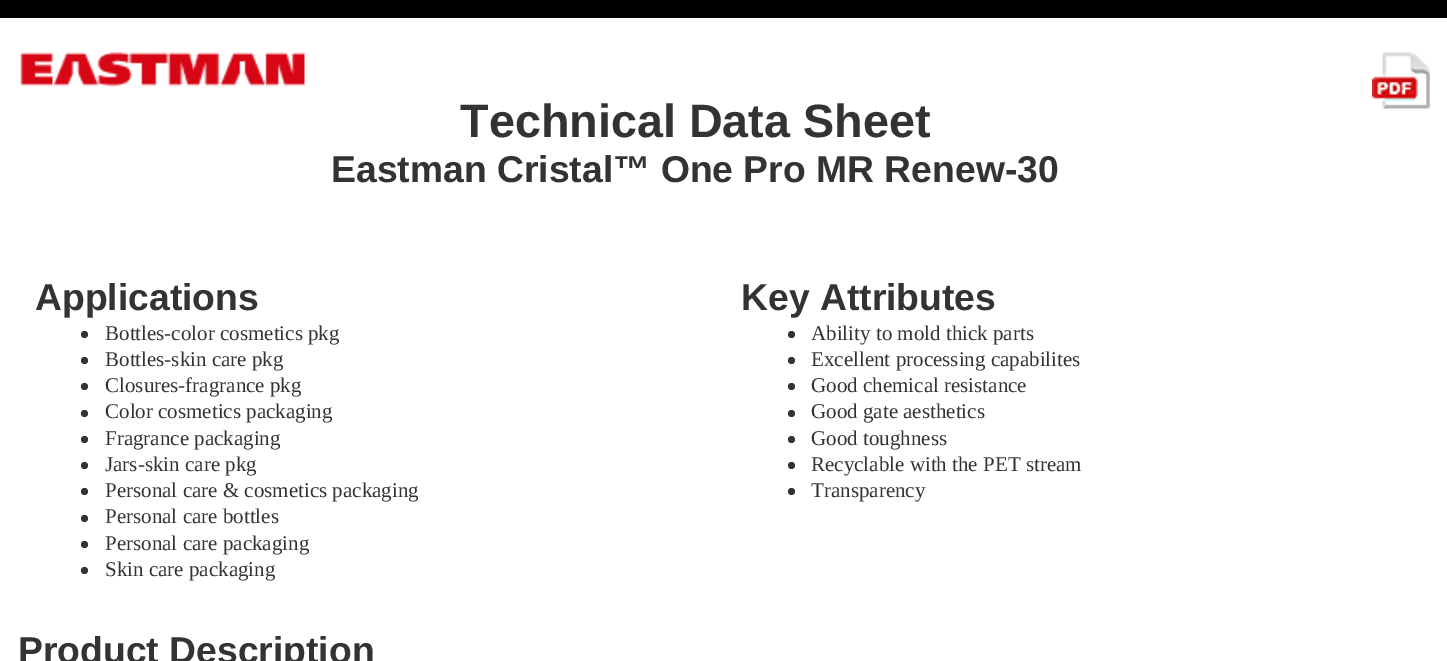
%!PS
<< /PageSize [1447 661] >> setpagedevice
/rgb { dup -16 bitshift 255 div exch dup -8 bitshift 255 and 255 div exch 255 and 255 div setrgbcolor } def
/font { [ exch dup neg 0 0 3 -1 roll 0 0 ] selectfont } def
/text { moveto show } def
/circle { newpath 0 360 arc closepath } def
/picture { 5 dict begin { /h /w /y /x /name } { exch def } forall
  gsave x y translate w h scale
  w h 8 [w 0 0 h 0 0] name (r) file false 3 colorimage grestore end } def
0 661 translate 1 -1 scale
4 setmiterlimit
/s1 { /LiberationSans-Bold 46.75 font 16#333333 rgb } def
/s2 { /LiberationSans-Bold 37.3 font 16#333333 rgb } def
/s3 { /LiberationSerif-Regular 21 font 16#333333 rgb } def
16#FFFFFF rgb
0 0 1447 661 rectfill
16#000000 rgb
0 0 1447 18 rectfill
(pic1.raw) 1372 52 58 57 picture
(pic2.raw) 20 52 285 35 picture
s1
(Technical Data Sheet) 460 137 text
s2
(Eastman Cristal™ One Pro MR Renew-30) 331 182 text
(Applications) 35 310 text
84.5 334.5 3.5 circle fill
s3
(Bottles-color cosmetics pkg) 105 340 text
84.5 360.5 3.5 circle fill
(Bottles-skin care pkg) 105 366 text
84.5 386.5 3.5 circle fill
(Closures-fragrance pkg) 105 392 text
84.5 413.5 3.5 circle fill
(Color cosmetics packaging) 105 418 text
84.5 439.5 3.5 circle fill
(Fragrance packaging) 105 445 text
84.5 465.5 3.5 circle fill
(Jars-skin care pkg) 105 471 text
84.5 491.5 3.5 circle fill
(Personal care & cosmetics packaging) 105 497 text
84.5 518.5 3.5 circle fill
(Personal care bottles) 105 523 text
84.5 544.5 3.5 circle fill
(Personal care packaging) 105 550 text
84.5 570.5 3.5 circle fill
(Skin care packaging) 105 576 text
s2
(Key Attributes) 741 310 text
791.5 334.5 3.5 circle fill
s3
(Ability to mold thick parts) 811 340 text
791.5 360.5 3.5 circle fill
(Excellent processing capabilites) 811 366 text
791.5 386.5 3.5 circle fill
(Good chemical resistance) 811 392 text
791.5 413.5 3.5 circle fill
(Good gate aesthetics) 811 418 text
791.5 439.5 3.5 circle fill
(Good toughness) 811 445 text
791.5 465.5 3.5 circle fill
(Recyclable with the PET stream) 811 471 text
791.5 491.5 3.5 circle fill
(Transparency) 811 497 text
s2
(Product Description) 18 663 text
showpage
